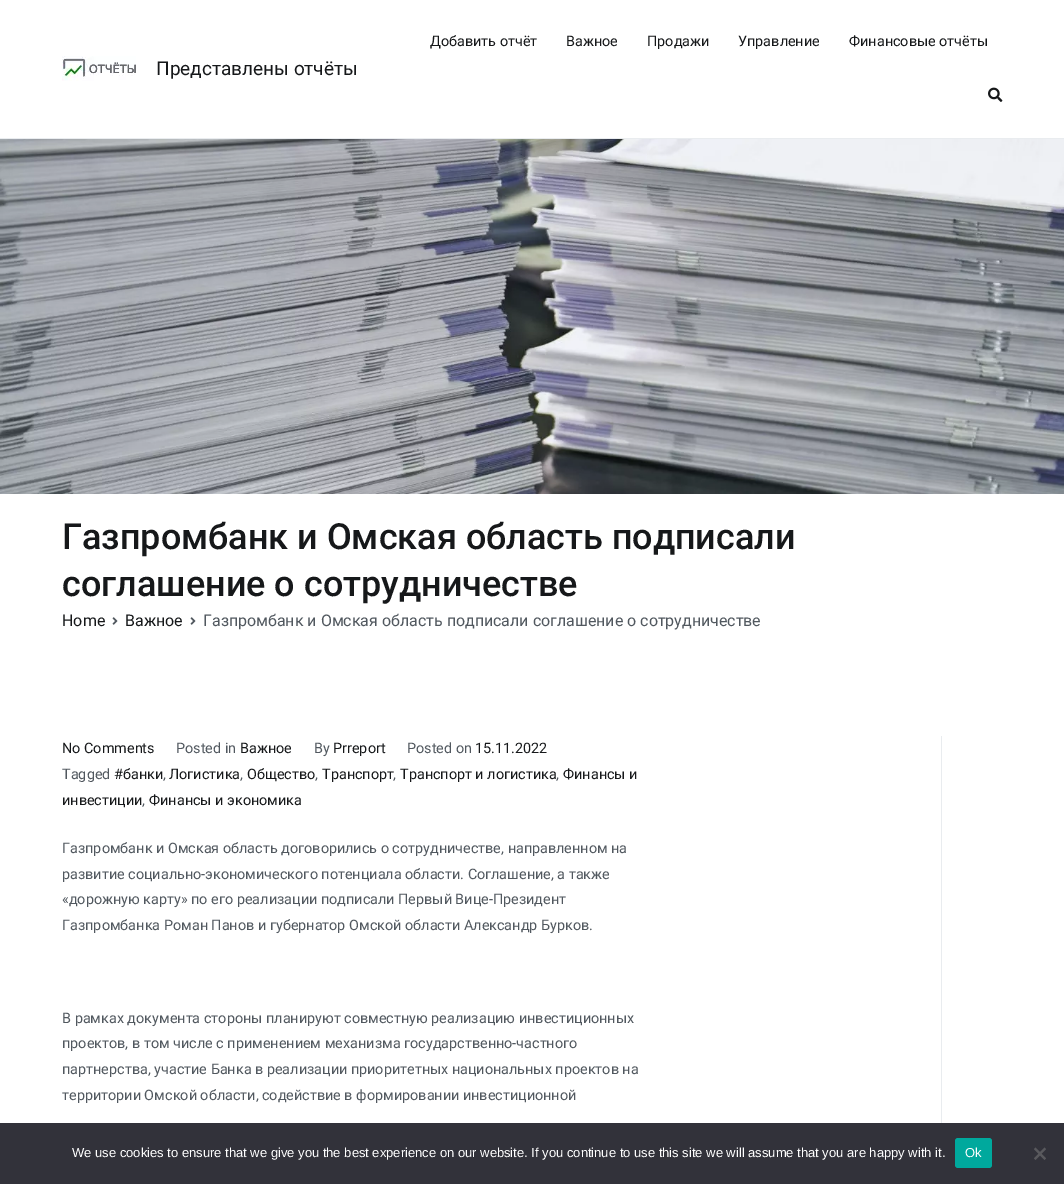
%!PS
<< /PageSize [1064 1184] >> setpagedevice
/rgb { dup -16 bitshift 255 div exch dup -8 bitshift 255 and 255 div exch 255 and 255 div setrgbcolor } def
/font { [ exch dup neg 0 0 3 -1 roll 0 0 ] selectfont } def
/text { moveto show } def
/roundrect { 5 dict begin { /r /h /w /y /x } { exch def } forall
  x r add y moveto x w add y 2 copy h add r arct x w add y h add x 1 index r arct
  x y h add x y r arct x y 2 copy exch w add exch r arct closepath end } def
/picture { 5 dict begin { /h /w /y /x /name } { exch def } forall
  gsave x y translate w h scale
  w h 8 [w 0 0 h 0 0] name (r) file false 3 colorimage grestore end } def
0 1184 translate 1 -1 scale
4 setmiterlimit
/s1 { /Roboto-Regular 14.4 font 16#16181A rgb } def
/s2 { /Roboto-Regular 19 font 16#16181A rgb } def
/s3 { /Roboto-Medium 36 font 16#16181A rgb } def
/s4 { /Roboto-Regular 16 font 16#16181A rgb } def
/s5 { /Roboto-Regular 16 font 16#51585F rgb } def
/s6 { /Roboto-Regular 14.4 font 16#51585F rgb } def
/s7 { /LiberationSans-Regular 13 font 16#FFFFFF rgb } def
16#FFFFFF rgb
0 0 1064 1184 rectfill
16#E9ECEF rgb
0 138 1064 1 rectfill
s1
(Добавить отчёт) 430 46 text
(Важное) 566 46 text
(Продажи) 647 46 text
(Управление) 738 46 text
(Финансовые отчёты) 849 46 text
(pic1.raw) 988 87 15 15 picture
(pic2.raw) 62 56 74 25 picture
s2
(Представлены отчёты) 156 75 text
(pic3.raw) 0 139 1064 355 picture
s3
(Газпромбанк и Омская область подписали) 62 549 text
(соглашение о сотрудничестве) 62 596 text
s4
(Home) 62 626 text
(pic4.raw) 112 617 6 8 picture
(Важное) 125 626 text
(pic4.raw) 190 617 6 8 picture
s5
(Газпромбанк и Омская область подписали соглашение о сотрудничестве) 203 626 text
s1
(No Comments) 62 753 text
s6
(Posted in) 176 753 text
s1
(Важное) 240 753 text
s6
(By) 314 753 text
s1
(Prreport) 333 753 text
s6
(Posted on) 407 753 text
s1
(15.11.2022) 475 753 text
s6
(Tagged) 62 779 text
s1
(#банки) 114 779 text
s6
(,) 163 779 text
s1
(Логистика) 169 779 text
s6
(,) 240 779 text
s1
(Общество) 247 779 text
s6
(,) 315 779 text
s1
(Транспорт) 322 779 text
s6
(,) 393 779 text
s1
(Транспорт и логистика) 400 779 text
s6
(,) 556 779 text
s1
(Финансы и) 563 779 text
(инвестиции) 62 805 text
s6
(,) 142 805 text
s1
(Финансы и экономика) 149 805 text
s6
(Газпромбанк и Омская область договорились о сотрудничестве, направленном на) 62 853 text
(развитие социально-экономического потенциала области. Соглашение, а также) 62 879 text
(«дорожную карту» по его реализации подписали Первый Вице-Президент) 62 904 text
(Газпромбанка Роман Панов и губернатор Омской области Александр Бурков.) 62 930 text
(В рамках документа стороны планируют совместную реализацию инвестиционных) 62 1023 text
(проектов, в том числе с применением механизма государственно-частного) 62 1048 text
(партнерства, участие Банка в реализации приоритетных национальных проектов на) 62 1074 text
(территории Омской области, содействие в формировании инвестиционной) 62 1100 text
16#E9ECEF rgb
941 736 1 387 rectfill
16#32323A rgb
0 1123 1064 61 rectfill
s7
(We use cookies to ensure that we give you the best experience on our website. If you continue to use this site we will assume that you are happy with it.) 72 1157 text
16#00A99D rgb
955 1138 37 30 3 roundrect fill
s7
(Ok) 965 1157 text
16#59595D rgb
1044.5 1147.5 moveto 1046 1149 lineto 1035.5 1160 lineto 1034 1158.5 lineto closepath fill
1034 1149 moveto 1035.5 1147.5 lineto 1046 1158.5 lineto 1044.5 1160 lineto closepath fill
showpage
